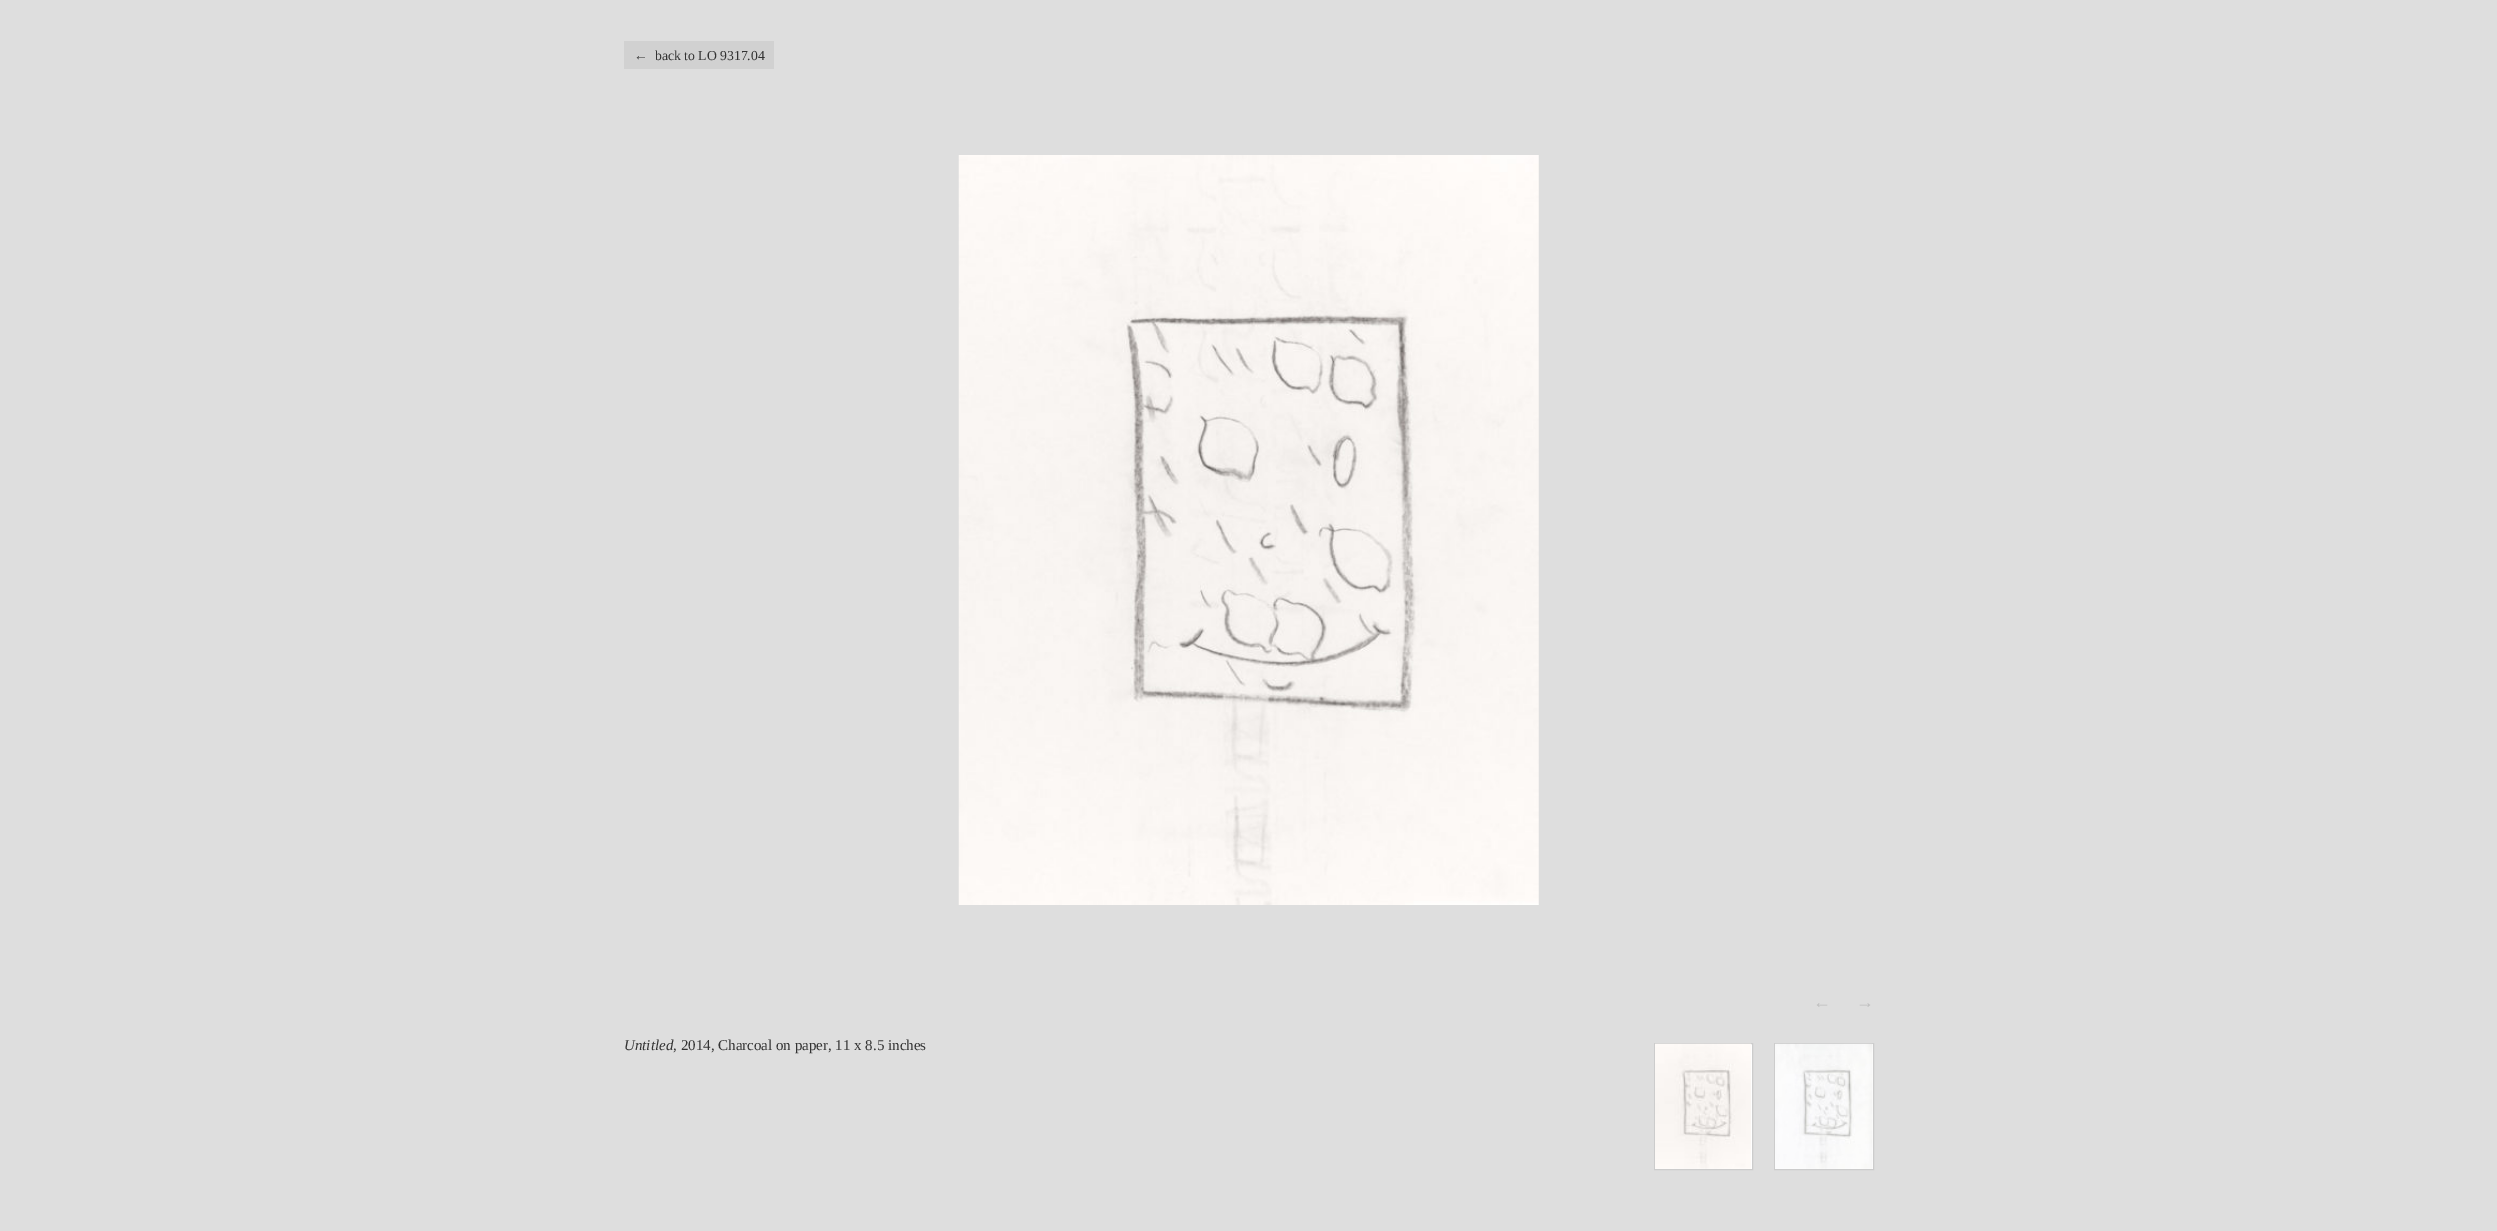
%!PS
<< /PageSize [2497 1231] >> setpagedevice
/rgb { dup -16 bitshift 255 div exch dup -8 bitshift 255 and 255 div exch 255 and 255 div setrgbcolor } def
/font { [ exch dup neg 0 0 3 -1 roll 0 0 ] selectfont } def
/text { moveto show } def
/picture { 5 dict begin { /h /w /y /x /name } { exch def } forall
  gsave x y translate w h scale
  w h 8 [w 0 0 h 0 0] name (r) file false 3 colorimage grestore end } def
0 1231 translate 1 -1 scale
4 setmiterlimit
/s1 { /LiberationSerif-Regular 13.75 font 16#333333 rgb } def
/s2 { /LiberationSerif-Regular 18 font 16#BFBFBF rgb } def
/s3 { /LiberationSerif-Italic 15 font 16#333333 rgb } def
/s4 { /LiberationSerif-Regular 15 font 16#333333 rgb } def
16#DEDEDE rgb
0 0 2497 1231 rectfill
16#D1D1D1 rgb
624 41 150 28 rectfill
s1
(←  back to LO 9317.04) 634 60 text
(pic1.raw) 958 155 581 750 picture
s2
(←) 1813 1008 text
(→) 1856 1008 text
s3
(Untitled) 624 1050 text
s4
(, 2014, Charcoal on paper, 11 x 8.5 inches) 673 1050 text
16#FFFFFF rgb
1654.5 1043.5 moveto 1752.5 1043.5 lineto 1752.5 1169.5 lineto 1654.5 1169.5 lineto closepath gsave fill grestore
16#CCCCCC rgb
stroke
(pic2.raw) 1655 1043 96 126 picture
16#FFFFFF rgb
1774.5 1043.5 moveto 1873.5 1043.5 lineto 1873.5 1169.5 lineto 1774.5 1169.5 lineto closepath gsave fill grestore
16#CCCCCC rgb
stroke
(pic3.raw) 1775 1043 98 126 picture
showpage
